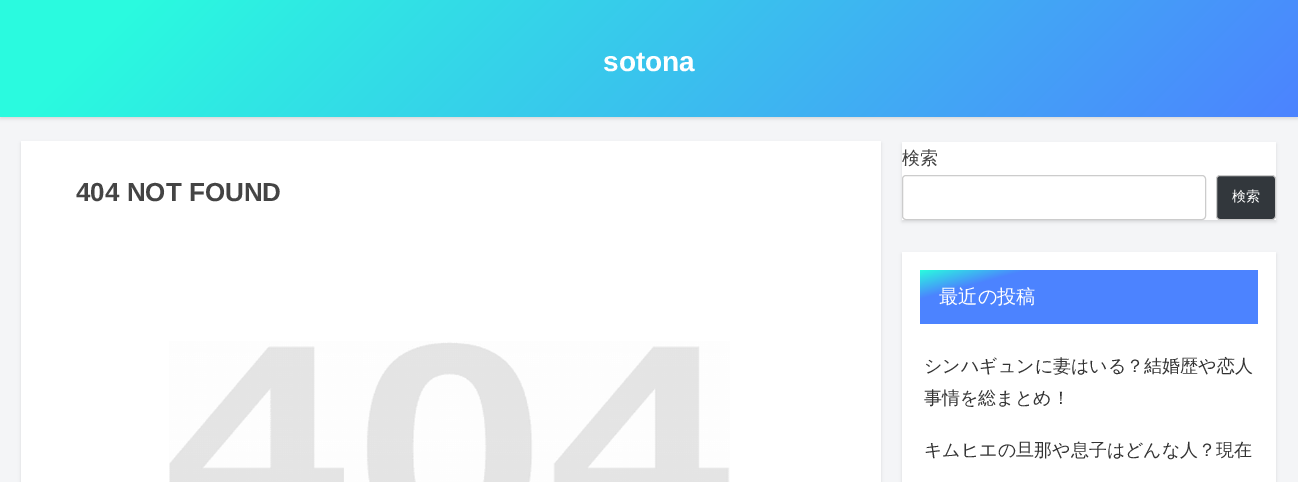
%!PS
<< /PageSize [1298 482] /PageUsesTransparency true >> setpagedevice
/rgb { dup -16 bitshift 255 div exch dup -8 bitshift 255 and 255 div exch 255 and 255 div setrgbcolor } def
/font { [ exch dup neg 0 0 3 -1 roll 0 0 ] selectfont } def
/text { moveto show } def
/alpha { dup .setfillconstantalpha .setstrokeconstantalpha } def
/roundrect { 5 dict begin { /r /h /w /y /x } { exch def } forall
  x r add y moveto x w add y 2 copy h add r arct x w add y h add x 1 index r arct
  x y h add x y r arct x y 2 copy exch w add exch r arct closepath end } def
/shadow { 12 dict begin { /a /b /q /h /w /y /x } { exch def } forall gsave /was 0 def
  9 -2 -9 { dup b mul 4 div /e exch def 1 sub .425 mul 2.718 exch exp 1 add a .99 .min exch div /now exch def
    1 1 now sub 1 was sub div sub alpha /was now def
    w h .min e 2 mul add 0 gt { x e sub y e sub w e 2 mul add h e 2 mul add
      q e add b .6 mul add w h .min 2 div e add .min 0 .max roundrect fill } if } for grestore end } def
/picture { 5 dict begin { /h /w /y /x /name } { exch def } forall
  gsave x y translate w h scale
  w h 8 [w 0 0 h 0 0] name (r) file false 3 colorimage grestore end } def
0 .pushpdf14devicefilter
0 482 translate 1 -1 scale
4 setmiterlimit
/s1 { /LiberationSans-Bold 28 font 16#FFFFFF rgb } def
/s2 { /LiberationSans-Bold 26 font 16#444444 rgb } def
/s3 { /WenQuanYiZenHei-Medium 18 font 16#444444 rgb } def
/s4 { /WenQuanYiZenHei-Medium 14 font 16#FFFFFF rgb } def
/s5 { /WenQuanYiZenHei-Medium 19.25 font 16#FFFFFF rgb } def
/s6 { /WenQuanYiZenHei-Medium 18 font 16#333333 rgb } def
16#F4F5F7 rgb
0 0 1298 482 rectfill
16#000000 rgb
0 2 1298 117 0 1.5 0.1 shadow
gsave 0 0 moveto 1298 0 lineto 1298 117 lineto 0 117 lineto closepath clip newpath
<< /ShadingType 2 /ColorSpace /DeviceRGB /Coords [295 -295 1003 412] /Extend [true true] /Function << /FunctionType 3 /Domain [0 1] /Functions [<< /FunctionType 2 /Domain [0 1] /C0 [0.165 0.98 0.875] /C1 [0.165 0.98 0.875] /N 1 >> << /FunctionType 2 /Domain [0 1] /C0 [0.165 0.98 0.875] /C1 [0.298 0.514 1] /N 1 >>] /Bounds [0.1] /Encode [0 1 0 1] >> >> shfill grestore
s1
(sotona) 603 71 text
16#000000 rgb
21 143 860 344 0 1.5 0.1 shadow
16#FFFFFF rgb
21 141 860 341 rectfill
s2
(404 NOT FOUND) 76 201 text
(pic1.raw) 169 341 561 141 picture
16#000000 rgb
902 144 374 78 0 1.5 0.1 shadow
16#FFFFFF rgb
902 142 374 78 rectfill
s3
(検索) 902 164 text
16#CCCCCC rgb
902.5 175.5 303 44 3.5 roundrect stroke
16#32373C rgb
1216.5 175.5 59 44 3.5 roundrect gsave fill grestore
16#CCCCCC rgb
stroke
s4
(検索) 1232 201 text
16#000000 rgb
902 254 374 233 0 1.5 0.1 shadow
16#FFFFFF rgb
902 252 374 230 rectfill
gsave 920 270 moveto 1258 270 lineto 1258 324 lineto 920 324 lineto closepath clip newpath
<< /ShadingType 2 /ColorSpace /DeviceRGB /Coords [1071 230 1107 364] /Extend [true true] /Function << /FunctionType 3 /Domain [0 1] /Functions [<< /FunctionType 2 /Domain [0 1] /C0 [0.165 0.98 0.875] /C1 [0.298 0.514 1] /N 1 >> << /FunctionType 2 /Domain [0 1] /C0 [0.298 0.514 1] /C1 [0.298 0.514 1] /N 1 >>] /Bounds [0.2] /Encode [0 1 0 1] >> >> shfill grestore
s5
(最近の投稿) 939 303 text
s6
(シンハギュンに妻はいる？結婚歴や恋人) 924 372 text
(事情を総まとめ！) 924 404 text
(キムヒエの旦那や息子はどんな人？現在) 924 456 text
.poppdf14devicefilter showpage
